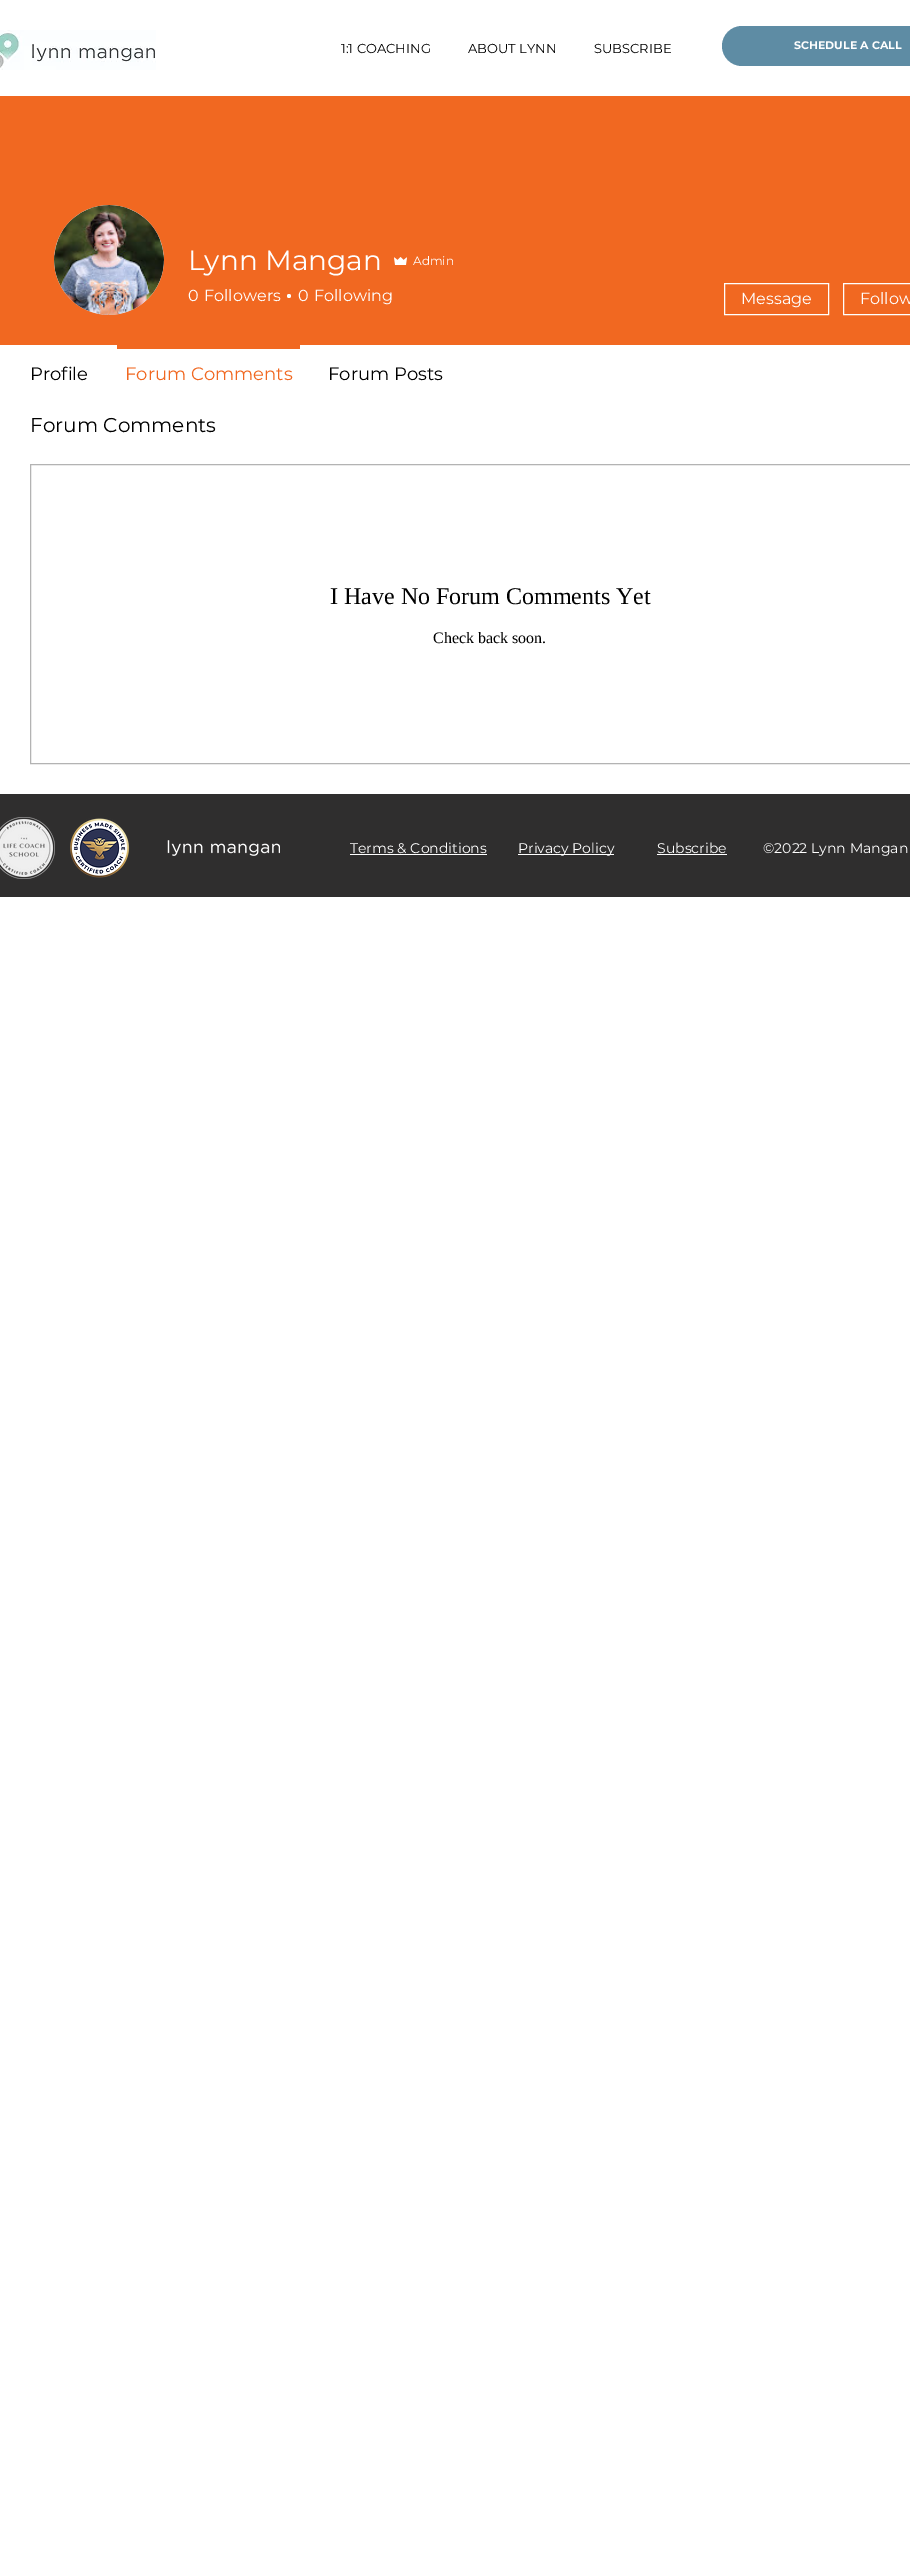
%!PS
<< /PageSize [910 2551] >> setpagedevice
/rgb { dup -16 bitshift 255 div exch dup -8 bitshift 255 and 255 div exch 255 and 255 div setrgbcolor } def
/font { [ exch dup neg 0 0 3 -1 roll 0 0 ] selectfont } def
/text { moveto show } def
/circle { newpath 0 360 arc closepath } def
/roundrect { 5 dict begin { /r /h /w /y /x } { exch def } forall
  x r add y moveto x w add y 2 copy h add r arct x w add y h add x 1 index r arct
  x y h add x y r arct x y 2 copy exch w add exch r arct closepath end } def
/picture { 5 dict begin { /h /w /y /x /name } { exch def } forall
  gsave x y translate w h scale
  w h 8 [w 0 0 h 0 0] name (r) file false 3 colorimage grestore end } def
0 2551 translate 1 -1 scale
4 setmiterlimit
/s1 { /Montserrat-Regular 13 font 16#000000 rgb } def
/s2 { /Montserrat-Bold 11 font 16#FFFFFF rgb } def
/s3 { /Montserrat-Regular 28 font 16#FFFFFF rgb } def
/s4 { /Montserrat-Regular 12 font 16#FFFFFF rgb } def
/s5 { /Montserrat-Regular 16 font 16#FFFFFF rgb } def
/s6 { /Montserrat-Regular 18 font 16#000000 rgb } def
/s7 { /Montserrat-Regular 18 font 16#F16821 rgb } def
/s8 { /Montserrat-Regular 20 font 16#000000 rgb } def
/s9 { /LiberationSerif-Regular 24 font 16#000000 rgb } def
/s10 { /LiberationSerif-Regular 16 font 16#000000 rgb } def
/s11 { /Montserrat-Regular 14 font 16#FFFFFF rgb } def
16#FFFFFF rgb
0 0 910 2551 rectfill
(pic1.raw) 0 30 156 40 picture
s1
(1:1 COACHING) 341 53 text
(ABOUT LYNN) 468 53 text
(SUBSCRIBE) 594 53 text
16#5E8CA4 rgb
722 26 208 40 20 roundrect fill
s2
(SCHEDULE A CALL) 794 49 text
16#F16821 rgb
0 96 910 249 rectfill
16#D8D8D8 rgb
109 260 55 circle fill
(pic2.raw) 54 205 110 110 picture
s3
(Lynn Mangan) 188 270 text
(pic3.raw) 394 257 13 8 picture
s4
(Admin) 413 265 text
s5
(0) 188 301 text
(Followers) 204 301 text
289 296 2 circle fill
(0) 298 301 text
(Following) 314 301 text
724.5 283.5 104 31 rectstroke
(Message) 741 304 text
843.5 283.5 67 31 rectstroke
(Follow) 860 304 text
s6
(Profile) 30 380 text
16#F16821 rgb
117 345 183 4 rectfill
(Forum Comments) 125 380 text
s6
(Forum Posts) 328 380 text
s8
(Forum Comments) 30 432 text
16#B3B3B3 rgb
30.5 464.5 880 299 rectstroke
s9
(I Have No Forum Comments Yet) 330 604 text
s10
(Check back soon.) 433 643 text
16#2F2E2E rgb
0 794 910 103 rectfill
(pic4.raw) 0 817 55 62 picture
(pic5.raw) 70 818 60 60 picture
(pic6.raw) 167 840 113 16 picture
s11
(Terms & Conditions) 350 853 text
350 854 137 1 rectfill
518 854 96 1 rectfill
(Privacy Policy) 518 853 text
(Subscribe) 657 853 text
657 854 70 1 rectfill
(©2022 Lynn Mangan) 763 853 text
showpage
